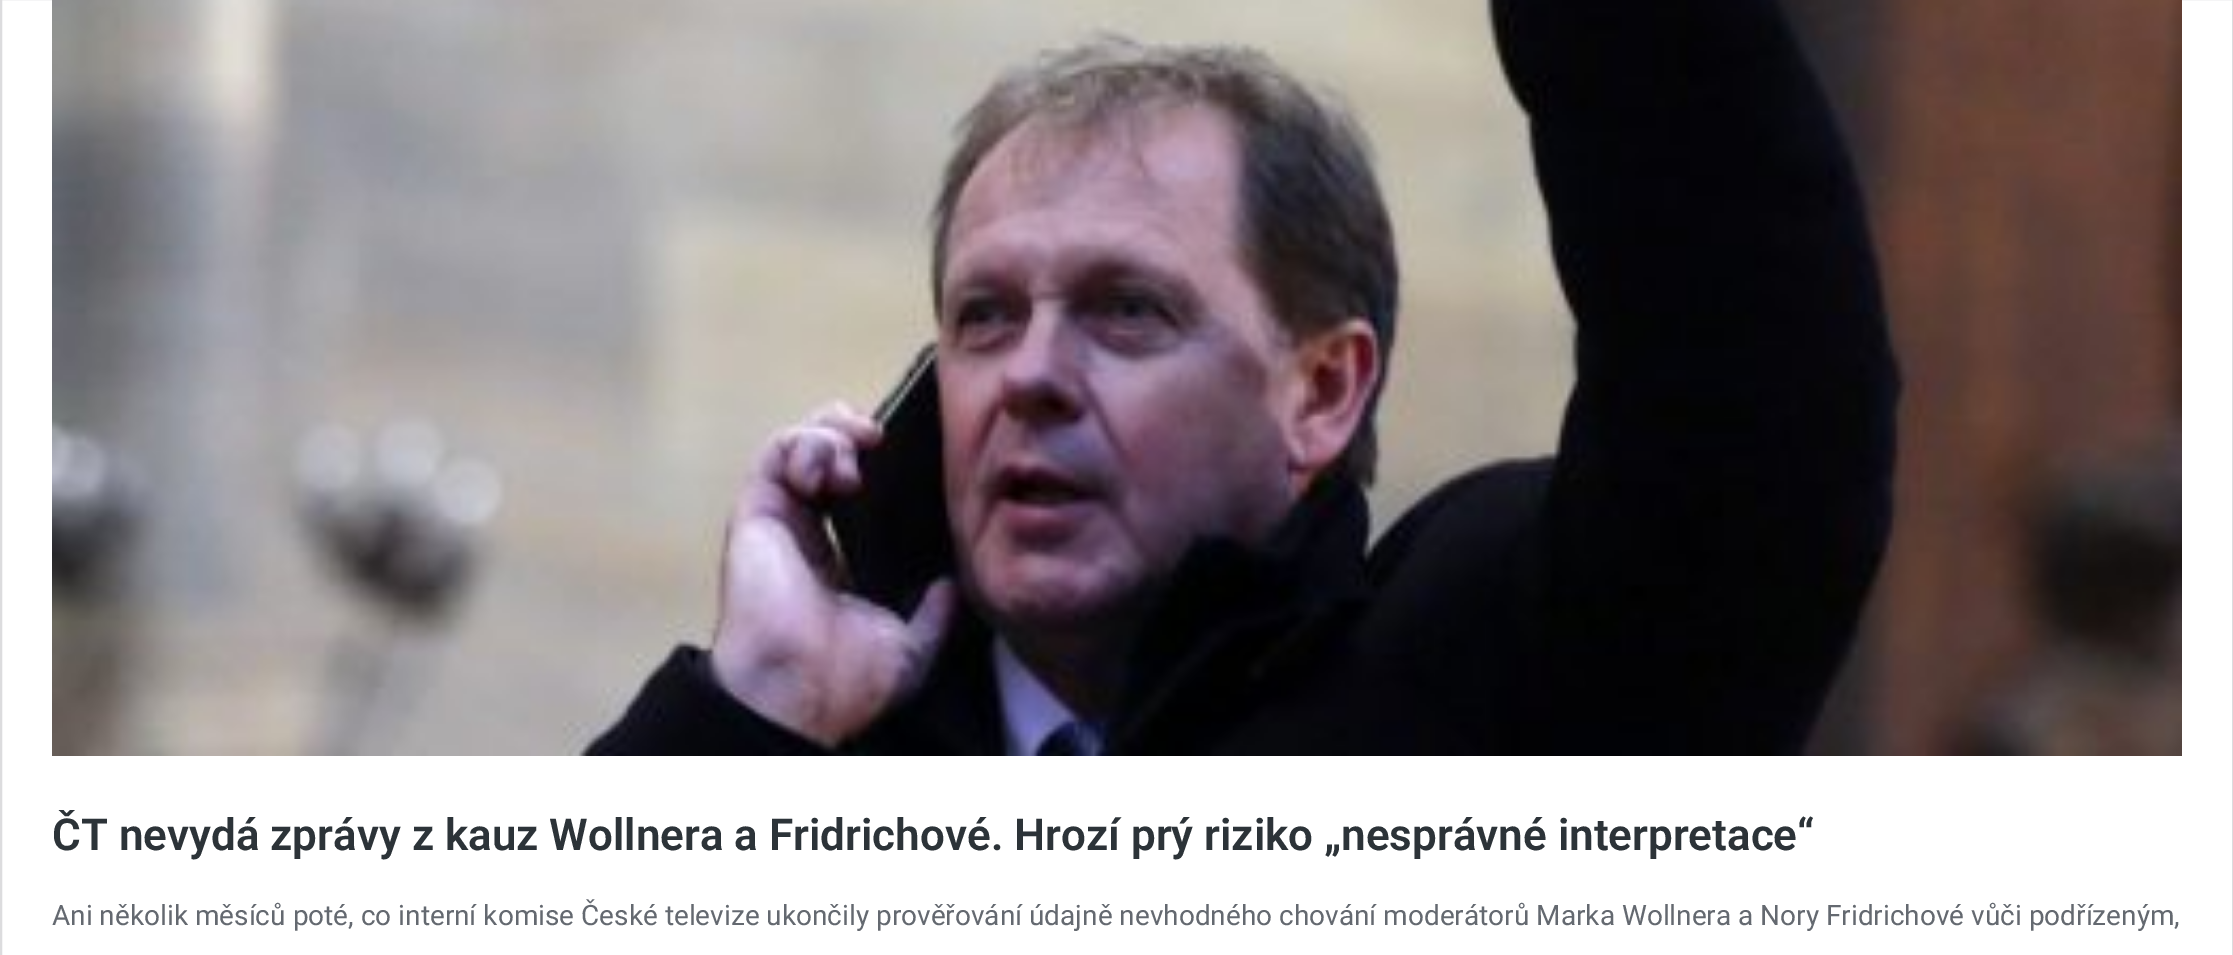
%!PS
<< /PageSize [2233 955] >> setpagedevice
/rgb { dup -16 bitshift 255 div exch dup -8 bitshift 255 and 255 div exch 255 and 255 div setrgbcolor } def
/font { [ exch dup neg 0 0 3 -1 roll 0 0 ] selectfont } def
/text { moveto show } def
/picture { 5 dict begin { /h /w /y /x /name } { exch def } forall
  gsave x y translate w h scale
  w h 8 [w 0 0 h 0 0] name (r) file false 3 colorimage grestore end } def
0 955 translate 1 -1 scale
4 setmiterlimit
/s1 { /Roboto-SemiBold 44 font 16#2C3338 rgb } def
/s2 { /Roboto-Regular 28 font 16#646970 rgb } def
16#FFFFFF rgb
0 0 2233 955 rectfill
16#DCDCDE rgb
2 setlinewidth
1 -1 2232 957 rectstroke
(pic1.raw) 52 0 2130 756 picture
s1
(ČT nevydá zprávy z kauz Wollnera a Fridrichové. Hrozí prý riziko „nesprávné interpretace“) 52 850 text
s2
(Ani několik měsíců poté, co interní komise České televize ukončily prověřování údajně nevhodného chování moderátorů Marka Wollnera a Nory Fridrichové vůči podřízeným,) 52 925 text
showpage
